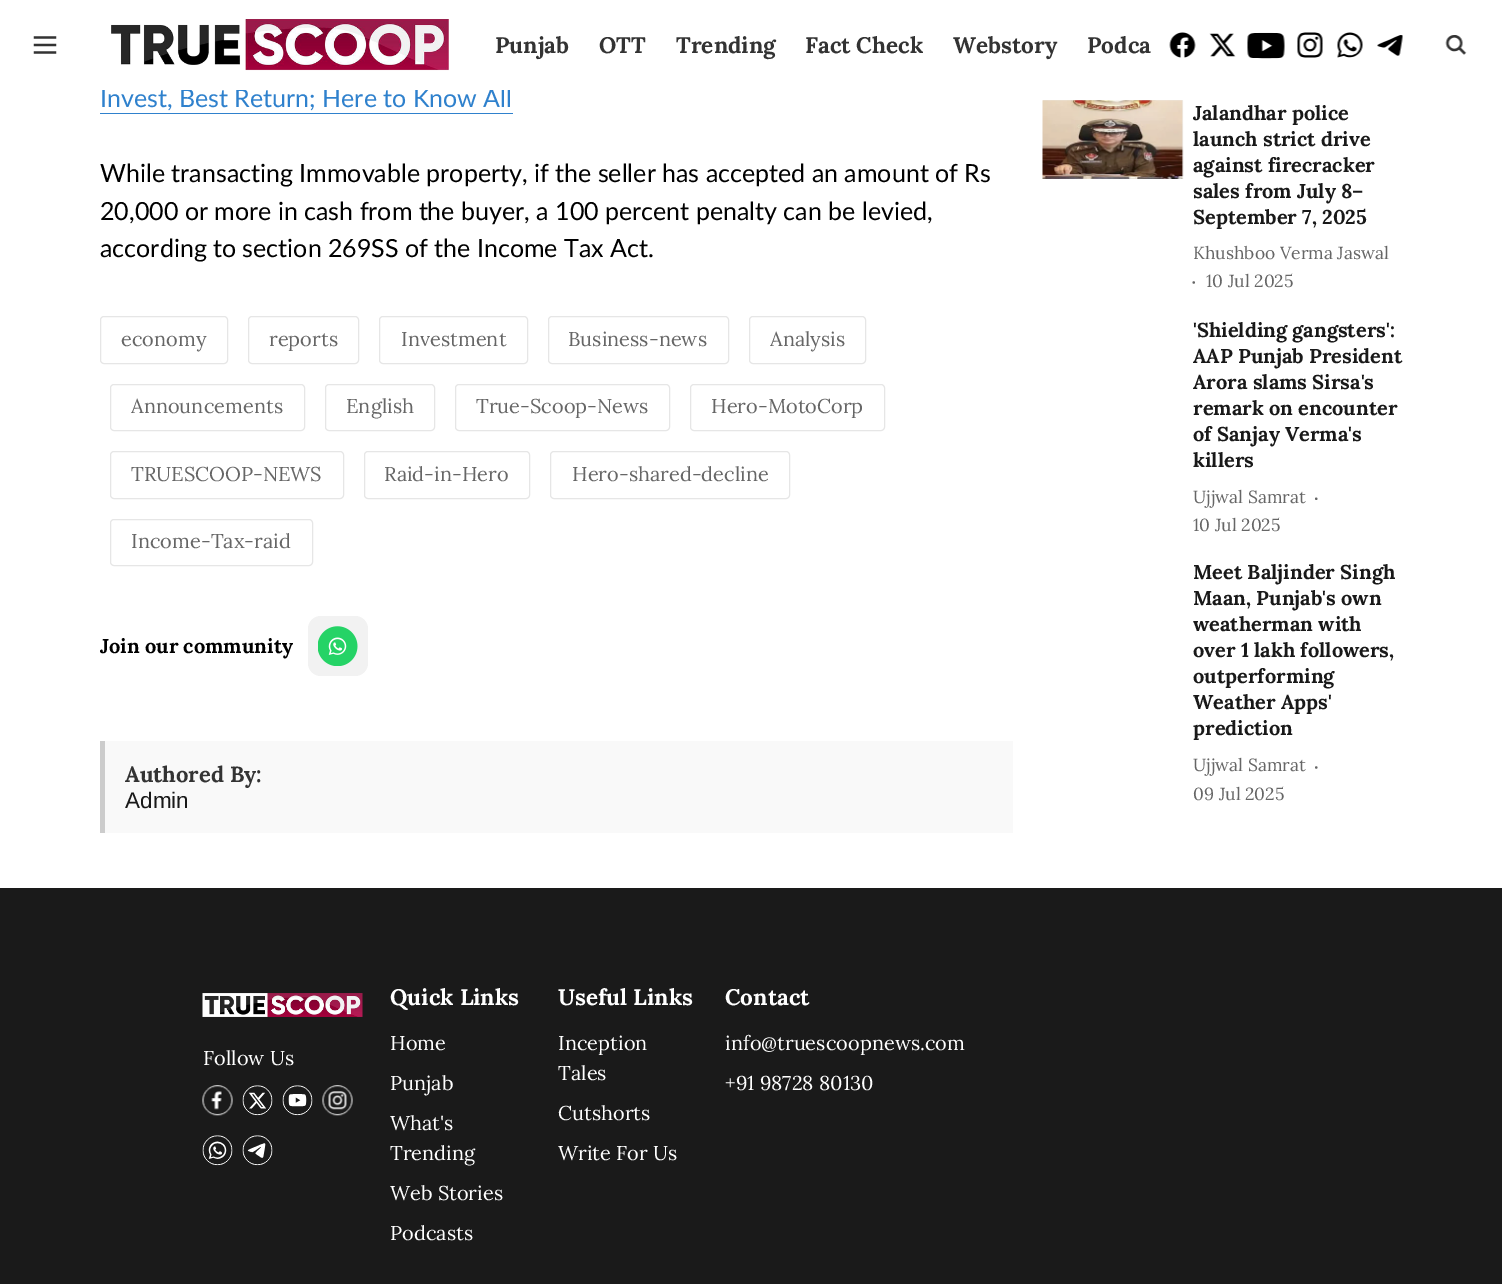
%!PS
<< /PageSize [1502 1284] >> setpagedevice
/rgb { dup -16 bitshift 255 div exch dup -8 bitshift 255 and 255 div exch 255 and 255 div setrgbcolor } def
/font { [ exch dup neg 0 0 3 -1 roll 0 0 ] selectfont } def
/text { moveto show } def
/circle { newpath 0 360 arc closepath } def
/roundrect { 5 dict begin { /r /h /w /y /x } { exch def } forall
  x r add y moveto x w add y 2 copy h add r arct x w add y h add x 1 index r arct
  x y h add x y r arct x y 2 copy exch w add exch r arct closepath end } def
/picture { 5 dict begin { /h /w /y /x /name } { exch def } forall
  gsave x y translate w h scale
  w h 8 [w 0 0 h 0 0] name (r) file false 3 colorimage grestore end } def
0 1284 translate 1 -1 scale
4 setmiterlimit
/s1 { /Lato-Regular 25 font 16#2F81CD rgb } def
/s2 { /Lora-Bold 22.5 font 16#333333 rgb } def
/s3 { /Lato-Regular 25 font 16#000000 rgb } def
/s4 { /Lora-Regular 20 font 16#666666 rgb } def
/s5 { /Lora-Bold 20 font 16#000000 rgb } def
/s6 { /Lora-Bold 22 font 16#333333 rgb } def
/s7 { /LiberationSans-Regular 22.5 font 16#191919 rgb } def
/s8 { /Lora-Bold 20 font 16#191919 rgb } def
/s9 { /Lora-Regular 17.5 font 16#666666 rgb } def
/s10 { /Lora-Regular 20 font 16#FFFFFF rgb } def
/s11 { /Lora-Bold 22.5 font 16#FFFFFF rgb } def
16#FFFFFF rgb
0 0 1502 1284 rectfill
s1
(Invest, Best Return; Here to Know All) 100 107 text
16#FFFFFF rgb
102 88 409 2 rectfill
(pic1.raw) 33 36 24 18 picture
(pic2.raw) 111 19 338 52 picture
s2
(Punjab) 495 53 text
(OTT) 599 53 text
(Trending) 676 53 text
(Fact Check) 805 53 text
(Webstory) 953 53 text
(Podca) 1087 53 text
(pic3.raw) 1169 32 27 26 picture
(pic4.raw) 1209 33 27 24 picture
(pic5.raw) 1247 32 38 27 picture
(pic6.raw) 1297 32 26 26 picture
(pic7.raw) 1337 32 26 26 picture
(pic8.raw) 1377 35 26 21 picture
(pic9.raw) 1445 35 22 20 picture
16#2F81CD rgb
100 113 413 1 rectfill
s3
(While transacting Immovable property, if the seller has accepted an amount of Rs) 100 182 text
(20,000 or more in cash from the buyer, a 100 percent penalty can be levied,) 100 220 text
(according to section 269SS of the Income Tax Act.) 100 257 text
16#E6E6E6 rgb
100.5 316.5 127 47 3.5 roundrect stroke
s4
(economy) 121 346 text
16#E6E6E6 rgb
248.5 316.5 110 47 3.5 roundrect stroke
s4
(reports) 269 346 text
16#E6E6E6 rgb
379.5 316.5 148 47 3.5 roundrect stroke
s4
(Investment) 401 346 text
16#E6E6E6 rgb
548.5 316.5 180 47 3.5 roundrect stroke
s4
(Business-news) 568 346 text
16#E6E6E6 rgb
749.5 316.5 116 47 3.5 roundrect stroke
s4
(Analysis) 770 346 text
16#E6E6E6 rgb
110.5 384.5 194 46 3.5 roundrect stroke
s4
(Announcements) 131 413 text
16#E6E6E6 rgb
325.5 384.5 109 46 3.5 roundrect stroke
s4
(English) 346 413 text
16#E6E6E6 rgb
455.5 384.5 214 46 3.5 roundrect stroke
s4
(True-Scoop-News) 476 413 text
16#E6E6E6 rgb
690.5 384.5 194 46 3.5 roundrect stroke
s4
(Hero-MotoCorp) 711 413 text
16#E6E6E6 rgb
110.5 451.5 233 47 3.5 roundrect stroke
s4
(TRUESCOOP-NEWS) 131 481 text
16#E6E6E6 rgb
364.5 451.5 165 47 3.5 roundrect stroke
s4
(Raid-in-Hero) 384 481 text
16#E6E6E6 rgb
550.5 451.5 239 47 3.5 roundrect stroke
s4
(Hero-shared-decline) 572 481 text
16#E6E6E6 rgb
110.5 519.5 202 46 3.5 roundrect stroke
s4
(Income-Tax-raid) 131 548 text
s5
(Join our community) 100 653 text
16#F2F2F2 rgb
308 616 60 60 13 roundrect fill
(pic10.raw) 318 626 40 40 picture
16#F9F9F9 rgb
105 741 908 92 rectfill
16#CCCCCC rgb
100 741 5 92 rectfill
s6
(Authored By:) 125 782 text
s7
(Admin) 125 808 text
16#F0F0F0 rgb
1043 100 140 79 rectfill
(pic11.raw) 1042 100 142 79 picture
s8
(Jalandhar police) 1193 120 text
(launch strict drive) 1193 146 text
(against firecracker) 1193 172 text
(sales from July 8–) 1193 198 text
(September 7, 2025) 1193 224 text
s9
(Khushboo Verma Jaswal) 1193 259 text
1193.8 282.5 1.2 circle fill
(10 Jul 2025) 1206 287 text
s8
('Shielding gangsters':) 1193 337 text
(AAP Punjab President) 1193 363 text
(Arora slams Sirsa's) 1193 389 text
(remark on encounter) 1193 415 text
(of Sanjay Verma's) 1193 441 text
(killers) 1193 467 text
s9
(Ujjwal Samrat) 1193 503 text
1316.2 498.8 1.2 circle fill
(10 Jul 2025) 1193 531 text
s8
(Meet Baljinder Singh) 1193 579 text
(Maan, Punjab's own) 1193 605 text
(weatherman with) 1193 631 text
(over 1 lakh followers,) 1193 657 text
(outperforming) 1193 683 text
(Weather Apps') 1193 709 text
(prediction) 1193 735 text
s9
(Ujjwal Samrat) 1193 771 text
1316.2 767.5 1.2 circle fill
(09 Jul 2025) 1193 800 text
16#1A1A1A rgb
0 888 1502 396 rectfill
(pic12.raw) 202 993 161 24 picture
s10
(Follow Us) 203 1065 text
(pic13.raw) 202 1085 31 31 picture
(pic14.raw) 242 1085 31 31 picture
(pic15.raw) 282 1085 31 31 picture
(pic16.raw) 322 1085 31 31 picture
(pic17.raw) 202 1135 31 31 picture
(pic18.raw) 242 1135 31 31 picture
s11
(Quick Links) 390 1005 text
s10
(Home) 390 1050 text
(Punjab) 390 1090 text
(What's) 390 1130 text
(Trending) 390 1160 text
(Web Stories) 390 1200 text
(Podcasts) 390 1240 text
s11
(Useful Links) 558 1005 text
s10
(Inception) 558 1050 text
(Tales) 558 1080 text
(Cutshorts) 558 1120 text
(Write For Us) 558 1160 text
s11
(Contact) 725 1005 text
s10
(info@truescoopnews.com) 725 1050 text
(+91 98728 80130) 725 1090 text
showpage
